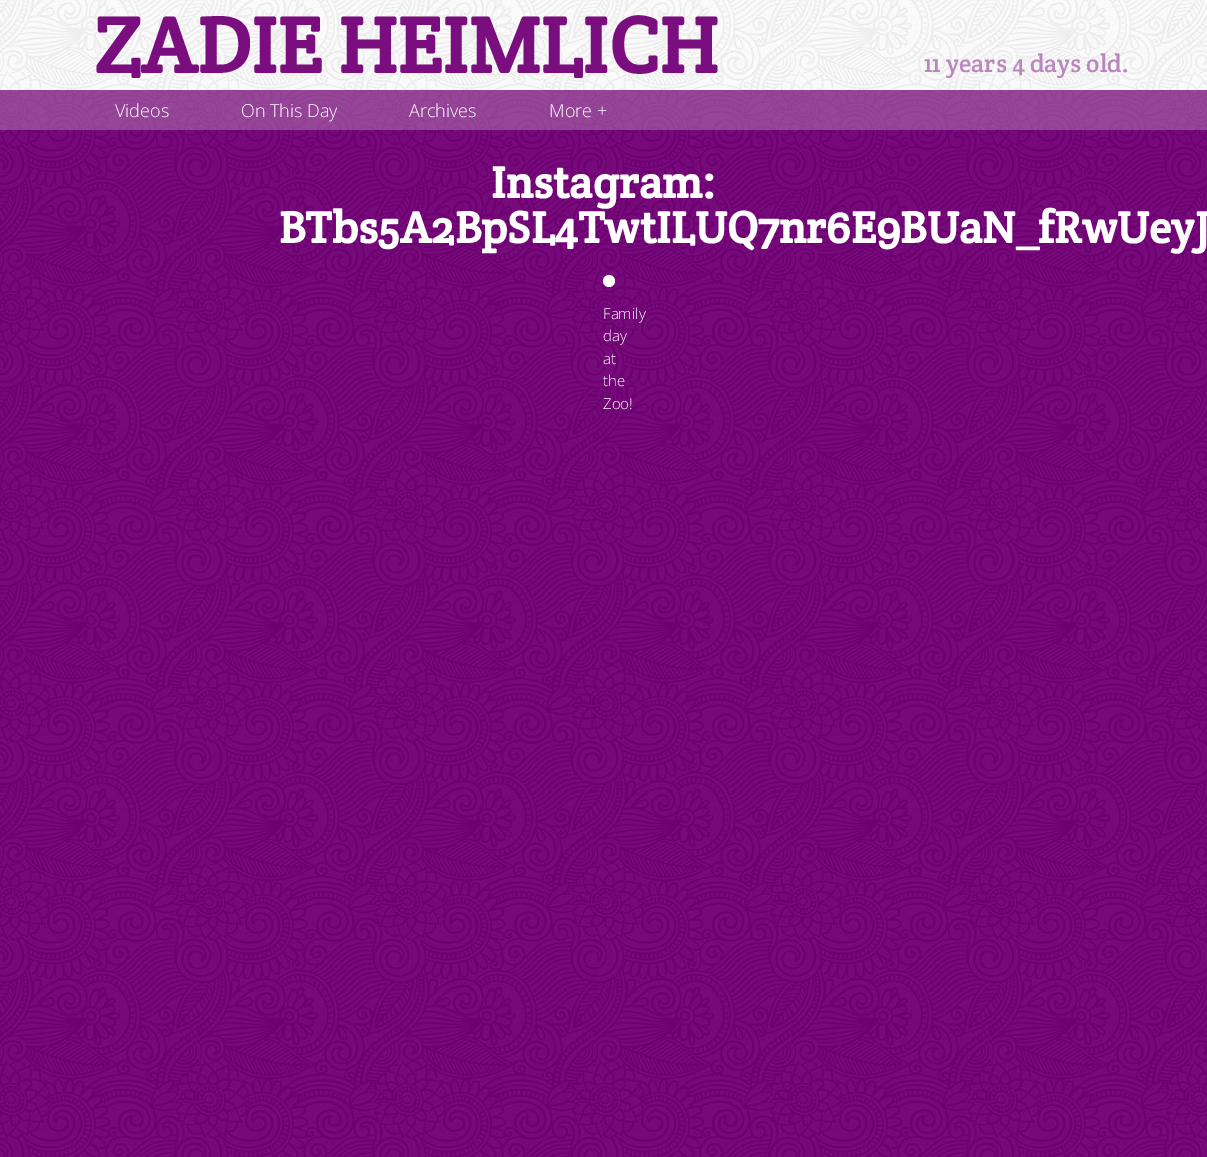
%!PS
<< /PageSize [1207 1157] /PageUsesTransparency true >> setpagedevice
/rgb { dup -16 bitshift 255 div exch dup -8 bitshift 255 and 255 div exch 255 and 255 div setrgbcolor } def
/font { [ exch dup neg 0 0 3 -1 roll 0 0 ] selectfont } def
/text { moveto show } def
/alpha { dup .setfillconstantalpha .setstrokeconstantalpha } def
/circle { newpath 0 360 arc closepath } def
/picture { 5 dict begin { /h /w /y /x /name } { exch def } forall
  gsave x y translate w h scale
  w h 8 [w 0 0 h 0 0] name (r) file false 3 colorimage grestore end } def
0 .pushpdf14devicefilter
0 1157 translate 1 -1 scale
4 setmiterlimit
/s1 { /CreteRound-Bold 80 font 16#7B0E7F rgb } def
/s2 { /CreteRound-Regular 25 font 16#BB85BD rgb } def
/s3 { /OpenSans-Light 18 font 16#FFFFFF rgb } def
/s4 { /CreteRound-Bold 45 font 16#FFFFFF rgb } def
/s5 { /OpenSans-Light 15 font 16#FFFFFF rgb } def
16#FFFFFF rgb
0 0 1207 1157 rectfill
(pic1.raw) 0 90 1207 1067 picture
(pic2.raw) 0 0 1207 90 picture
s1
(ZADIE HEIMLICH) 94 73 text
s2
(11 years 4 days old.) 924 72 text
0.5 alpha
16#B47FB6 rgb
0 90 1207 40 rectfill
1 alpha
s3
(Videos) 115 117 text
(On This Day) 241 117 text
(Archives) 409 117 text
(More +) 549 117 text
s4
(Instagram:) 491 198 text
(BTbs5A2BpSL4TwtILUQ7nr6E9BUaN_fRwUeyJ) 279 243 text
609 281 6 circle fill
s5
(Family) 603 319 text
(day) 603 341 text
(at) 603 364 text
(the) 603 386 text
(Zoo!) 603 409 text
.poppdf14devicefilter showpage
